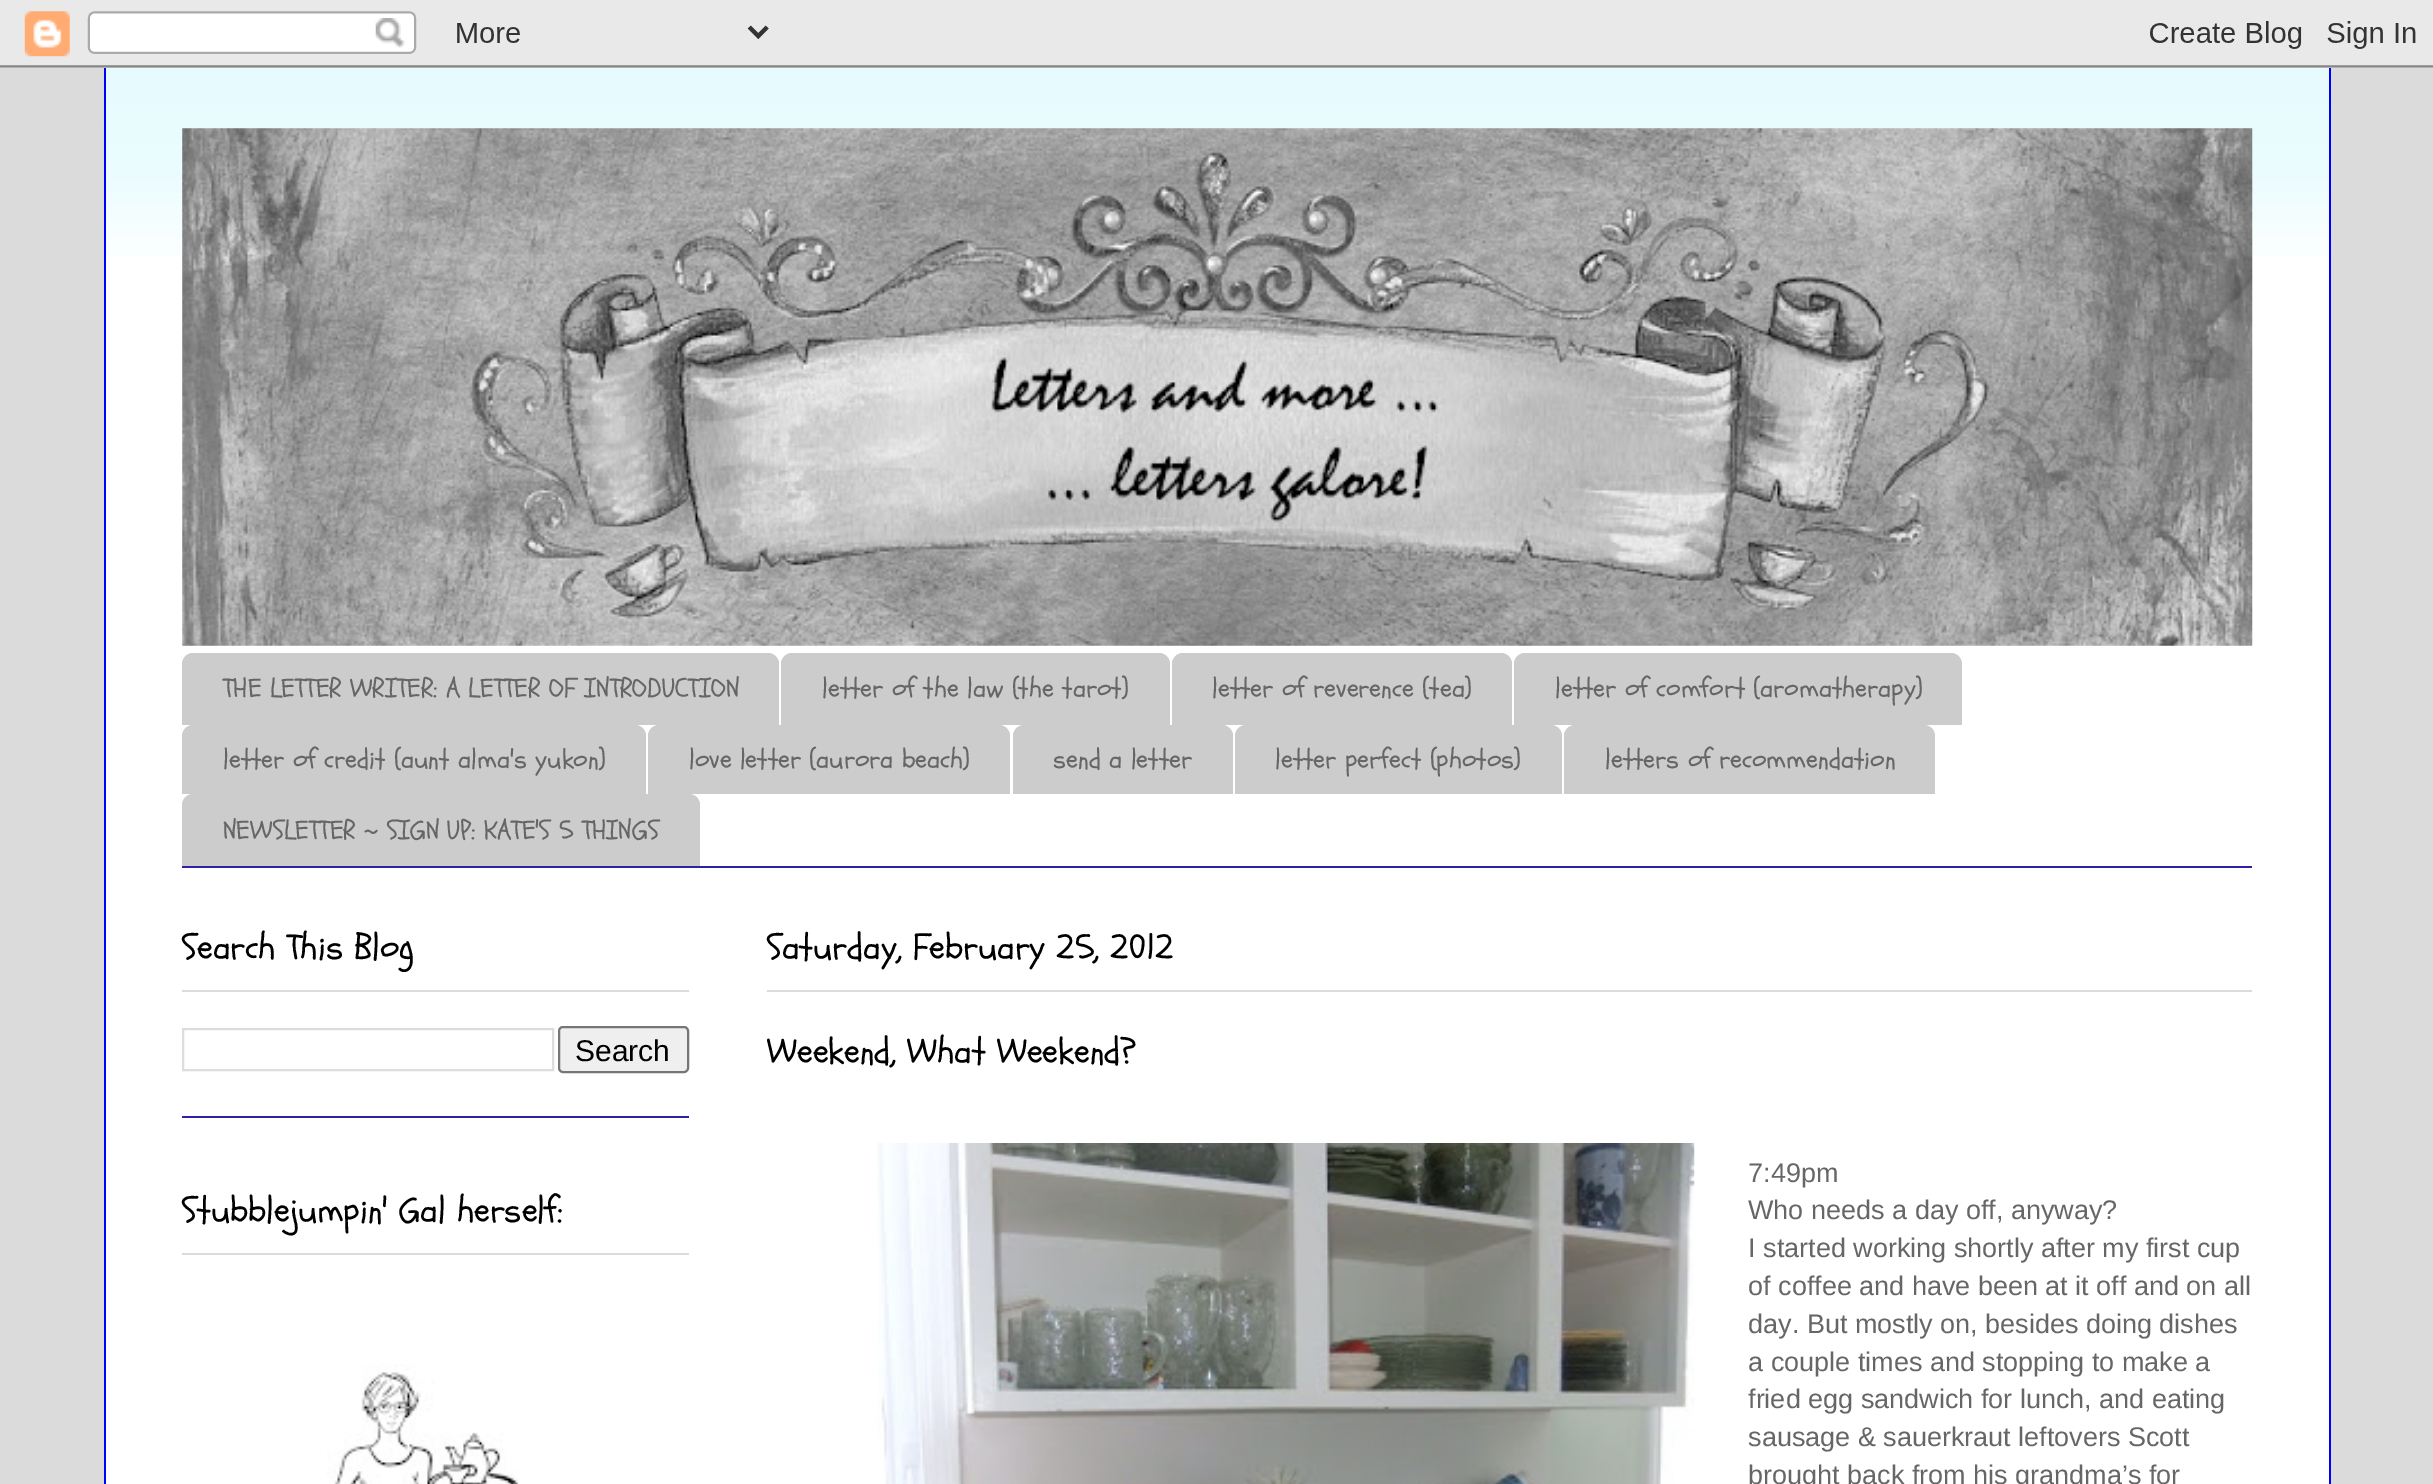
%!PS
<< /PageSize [2433 1484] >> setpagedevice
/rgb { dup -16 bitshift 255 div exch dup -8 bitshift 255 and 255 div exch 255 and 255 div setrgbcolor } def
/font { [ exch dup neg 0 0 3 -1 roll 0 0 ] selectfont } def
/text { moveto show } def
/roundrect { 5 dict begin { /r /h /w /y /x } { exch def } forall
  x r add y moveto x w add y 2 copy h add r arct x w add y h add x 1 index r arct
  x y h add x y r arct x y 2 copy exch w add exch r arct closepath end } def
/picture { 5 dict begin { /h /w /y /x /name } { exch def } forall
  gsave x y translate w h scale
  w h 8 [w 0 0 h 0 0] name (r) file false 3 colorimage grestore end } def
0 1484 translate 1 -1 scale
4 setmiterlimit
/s1 { /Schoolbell-Regular 27 font 16#666666 rgb } def
/s2 { /Schoolbell-Regular 36 font 16#000000 rgb } def
/s3 { /LiberationSans-Regular 30 font 16#000000 rgb } def
/s4 { /Arimo-Regular 27 font 16#666666 rgb } def
16#DBDBDB rgb
0 0 2433 1484 rectfill
(pic1.raw) 0 0 2433 68 picture
16#FFFFFF rgb
106 68 2223 1416 rectfill
(pic2.raw) 103 68 2226 188 picture
16#0000FF rgb
2329 68 2 1416 rectfill
104 68 2 1416 rectfill
(pic3.raw) 182 128 2071 518 picture
16#2F21A6 rgb
182 866 2070 2 rectfill
16#CCCCCC rgb
193 653 moveto 768 653 lineto 774 653 779 658 779 664 curveto 779 725 lineto 182 725 lineto 182 664 lineto 182 658 187 653 193 653 curveto closepath fill
s1
(THE LETTER WRITER: A LETTER OF INTRODUCTION) 223 697 text
16#CCCCCC rgb
792 653 moveto 1159 653 lineto 1165 653 1170 658 1170 664 curveto 1170 725 lineto 781 725 lineto 781 664 lineto 781 658 786 653 792 653 curveto closepath fill
s1
(letter of the law \(the tarot\)) 822 697 text
16#CCCCCC rgb
1183 653 moveto 1501 653 lineto 1507 653 1512 658 1512 664 curveto 1512 725 lineto 1172 725 lineto 1172 664 lineto 1172 658 1177 653 1183 653 curveto closepath fill
s1
(letter of reverence \(tea\)) 1212 697 text
16#CCCCCC rgb
1525 653 moveto 1951 653 lineto 1957 653 1962 658 1962 664 curveto 1962 725 lineto 1514 725 lineto 1514 664 lineto 1514 658 1519 653 1525 653 curveto closepath fill
s1
(letter of comfort \(aromatherapy\)) 1555 697 text
16#CCCCCC rgb
193 725 moveto 635 725 lineto 641 725 646 730 646 736 curveto 646 794 lineto 182 794 lineto 182 736 lineto 182 730 187 725 193 725 curveto closepath fill
s1
(letter of credit \(aunt alma's yukon\)) 223 768 text
16#CCCCCC rgb
659 725 moveto 999 725 lineto 1005 725 1010 730 1010 736 curveto 1010 794 lineto 648 794 lineto 648 736 lineto 648 730 653 725 659 725 curveto closepath fill
s1
(love letter \(aurora beach\)) 689 768 text
16#CCCCCC rgb
1024 725 moveto 1222 725 lineto 1228 725 1233 730 1233 736 curveto 1233 794 lineto 1013 794 lineto 1013 736 lineto 1013 730 1018 725 1024 725 curveto closepath fill
s1
(send a letter) 1053 768 text
16#CCCCCC rgb
1246 725 moveto 1551 725 lineto 1557 725 1562 730 1562 736 curveto 1562 794 lineto 1235 794 lineto 1235 736 lineto 1235 730 1240 725 1246 725 curveto closepath fill
s1
(letter perfect \(photos\)) 1275 768 text
16#CCCCCC rgb
1575 725 moveto 1924 725 lineto 1930 725 1935 730 1935 736 curveto 1935 794 lineto 1564 794 lineto 1564 736 lineto 1564 730 1569 725 1575 725 curveto closepath fill
s1
(letters of recommendation) 1605 768 text
16#CCCCCC rgb
193 794 moveto 689 794 lineto 695 794 700 799 700 805 curveto 700 866 lineto 182 866 lineto 182 805 lineto 182 799 187 794 193 794 curveto closepath fill
s1
(NEWSLETTER ~ SIGN UP: KATE'S 5 THINGS) 223 839 text
16#2F21A6 rgb
182 1116 507 2 rectfill
16#DBDBDB rgb
182 990 507 2 rectfill
s2
(Search This Blog) 182 959 text
16#DDDDDD rgb
2 setlinewidth
183 1029 370 41 rectstroke
16#EFEFEF rgb
559 1027 129 45 4 roundrect gsave fill grestore
16#767676 rgb
stroke
s3
(Search) 575 1061 text
16#DBDBDB rgb
182 1253 507 2 rectfill
s2
(Stubblejumpin' Gal herself:) 182 1222 text
(pic4.raw) 327 1364 192 120 picture
16#DBDBDB rgb
767 990 1485 2 rectfill
s2
(Saturday, February 25, 2012) 767 959 text
(Weekend, What Weekend?) 767 1063 text
(pic5.raw) 877 1143 818 341 picture
s4
(7:49pm) 1748 1182 text
(Who needs a day off, anyway?) 1748 1219 text
(I started working shortly after my first cup) 1748 1257 text
(of coffee and have been at it off and on all) 1748 1295 text
(day. But mostly on, besides doing dishes) 1748 1333 text
(a couple times and stopping to make a) 1748 1371 text
(fried egg sandwich for lunch, and eating) 1748 1408 text
(sausage & sauerkraut leftovers Scott) 1748 1446 text
(brought back from his grandma’s for) 1748 1484 text
showpage
